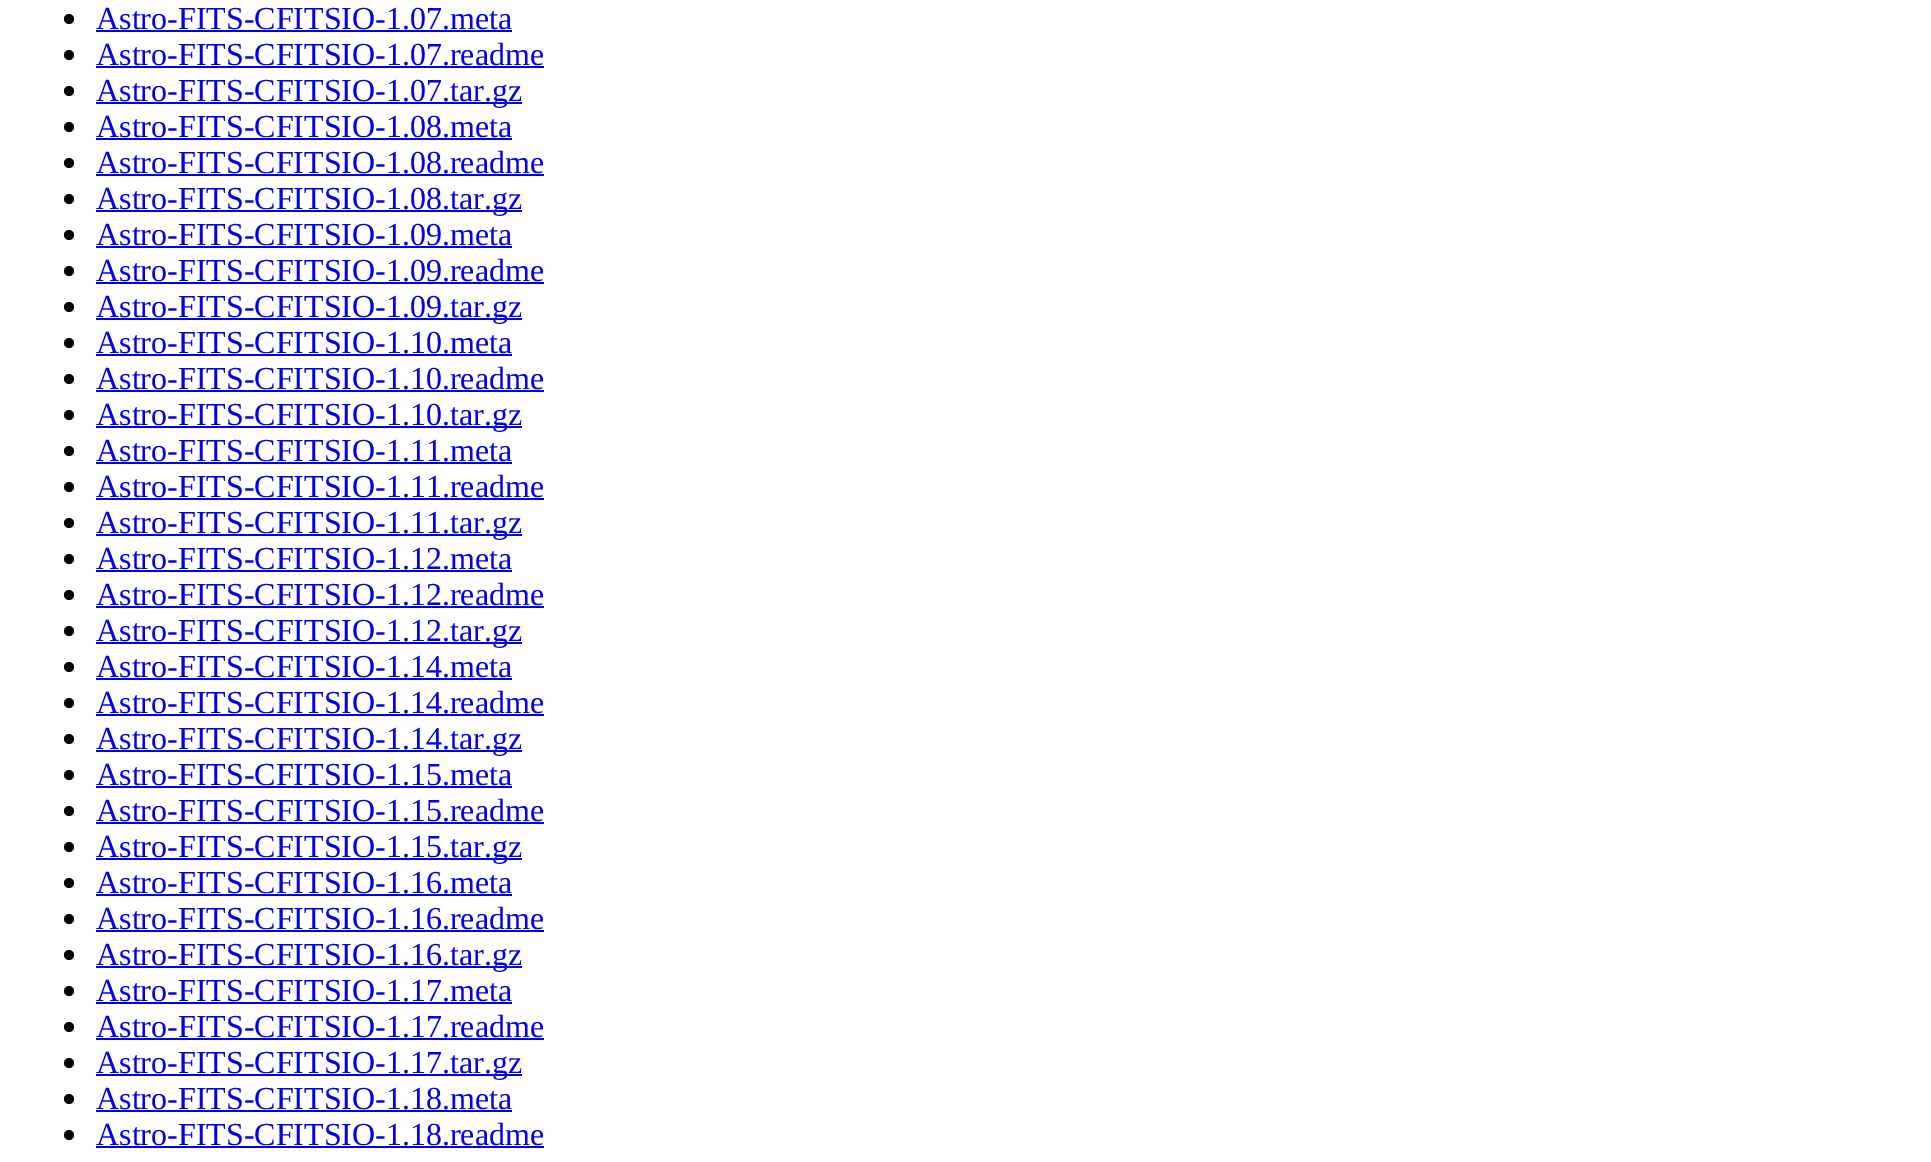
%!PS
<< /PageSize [1931 1162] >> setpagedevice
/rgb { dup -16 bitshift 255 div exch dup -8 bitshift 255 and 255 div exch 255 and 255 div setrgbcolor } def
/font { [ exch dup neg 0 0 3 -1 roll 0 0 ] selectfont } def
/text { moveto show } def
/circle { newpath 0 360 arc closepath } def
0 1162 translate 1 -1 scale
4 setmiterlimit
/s1 { /LiberationSerif-Regular 32 font 16#0000EE rgb } def
16#FFFFFF rgb
0 0 1931 1162 rectfill
16#000000 rgb
69 19 5 circle fill
s1
(Astro-FITS-CFITSIO-1.07.meta) 96 29 text
96 30 416 2 rectfill
16#000000 rgb
69 55 5 circle fill
s1
(Astro-FITS-CFITSIO-1.07.readme) 96 65 text
96 66 448 2 rectfill
16#000000 rgb
69 91 5 circle fill
16#0000EE rgb
96 102 426 2 rectfill
(Astro-FITS-CFITSIO-1.07.tar.gz) 96 101 text
16#000000 rgb
69 127 5 circle fill
s1
(Astro-FITS-CFITSIO-1.08.meta) 96 137 text
96 138 416 2 rectfill
16#000000 rgb
69 163 5 circle fill
s1
(Astro-FITS-CFITSIO-1.08.readme) 96 173 text
96 174 448 2 rectfill
16#000000 rgb
69 199 5 circle fill
16#0000EE rgb
96 210 426 2 rectfill
(Astro-FITS-CFITSIO-1.08.tar.gz) 96 209 text
16#000000 rgb
69 235 5 circle fill
s1
(Astro-FITS-CFITSIO-1.09.meta) 96 245 text
96 246 416 2 rectfill
16#000000 rgb
69 271 5 circle fill
s1
(Astro-FITS-CFITSIO-1.09.readme) 96 281 text
96 282 448 2 rectfill
16#000000 rgb
69 307 5 circle fill
16#0000EE rgb
96 318 426 2 rectfill
(Astro-FITS-CFITSIO-1.09.tar.gz) 96 317 text
16#000000 rgb
69 343 5 circle fill
s1
(Astro-FITS-CFITSIO-1.10.meta) 96 353 text
96 354 416 2 rectfill
16#000000 rgb
69 379 5 circle fill
s1
(Astro-FITS-CFITSIO-1.10.readme) 96 389 text
96 390 448 2 rectfill
16#000000 rgb
69 415 5 circle fill
16#0000EE rgb
96 426 426 2 rectfill
(Astro-FITS-CFITSIO-1.10.tar.gz) 96 425 text
16#000000 rgb
69 451 5 circle fill
s1
(Astro-FITS-CFITSIO-1.11.meta) 96 461 text
96 462 416 2 rectfill
16#000000 rgb
69 487 5 circle fill
s1
(Astro-FITS-CFITSIO-1.11.readme) 96 497 text
96 498 448 2 rectfill
16#000000 rgb
69 523 5 circle fill
16#0000EE rgb
96 534 426 2 rectfill
(Astro-FITS-CFITSIO-1.11.tar.gz) 96 533 text
16#000000 rgb
69 559 5 circle fill
s1
(Astro-FITS-CFITSIO-1.12.meta) 96 569 text
96 570 416 2 rectfill
16#000000 rgb
69 595 5 circle fill
s1
(Astro-FITS-CFITSIO-1.12.readme) 96 605 text
96 606 448 2 rectfill
16#000000 rgb
69 631 5 circle fill
16#0000EE rgb
96 642 426 2 rectfill
(Astro-FITS-CFITSIO-1.12.tar.gz) 96 641 text
16#000000 rgb
69 667 5 circle fill
s1
(Astro-FITS-CFITSIO-1.14.meta) 96 677 text
96 678 416 2 rectfill
16#000000 rgb
69 703 5 circle fill
s1
(Astro-FITS-CFITSIO-1.14.readme) 96 713 text
96 714 448 2 rectfill
16#000000 rgb
69 739 5 circle fill
16#0000EE rgb
96 750 426 2 rectfill
(Astro-FITS-CFITSIO-1.14.tar.gz) 96 749 text
16#000000 rgb
69 775 5 circle fill
s1
(Astro-FITS-CFITSIO-1.15.meta) 96 785 text
96 786 416 2 rectfill
16#000000 rgb
69 811 5 circle fill
s1
(Astro-FITS-CFITSIO-1.15.readme) 96 821 text
96 822 448 2 rectfill
16#000000 rgb
69 847 5 circle fill
16#0000EE rgb
96 858 426 2 rectfill
(Astro-FITS-CFITSIO-1.15.tar.gz) 96 857 text
16#000000 rgb
69 883 5 circle fill
s1
(Astro-FITS-CFITSIO-1.16.meta) 96 893 text
96 894 416 2 rectfill
16#000000 rgb
69 919 5 circle fill
s1
(Astro-FITS-CFITSIO-1.16.readme) 96 929 text
96 930 448 2 rectfill
16#000000 rgb
69 955 5 circle fill
16#0000EE rgb
96 966 426 2 rectfill
(Astro-FITS-CFITSIO-1.16.tar.gz) 96 965 text
16#000000 rgb
69 991 5 circle fill
s1
(Astro-FITS-CFITSIO-1.17.meta) 96 1001 text
96 1002 416 2 rectfill
16#000000 rgb
69 1027 5 circle fill
s1
(Astro-FITS-CFITSIO-1.17.readme) 96 1037 text
96 1038 448 2 rectfill
16#000000 rgb
69 1063 5 circle fill
16#0000EE rgb
96 1074 426 2 rectfill
(Astro-FITS-CFITSIO-1.17.tar.gz) 96 1073 text
16#000000 rgb
69 1099 5 circle fill
s1
(Astro-FITS-CFITSIO-1.18.meta) 96 1109 text
96 1110 416 2 rectfill
16#000000 rgb
69 1135 5 circle fill
s1
(Astro-FITS-CFITSIO-1.18.readme) 96 1145 text
96 1146 448 2 rectfill
showpage
